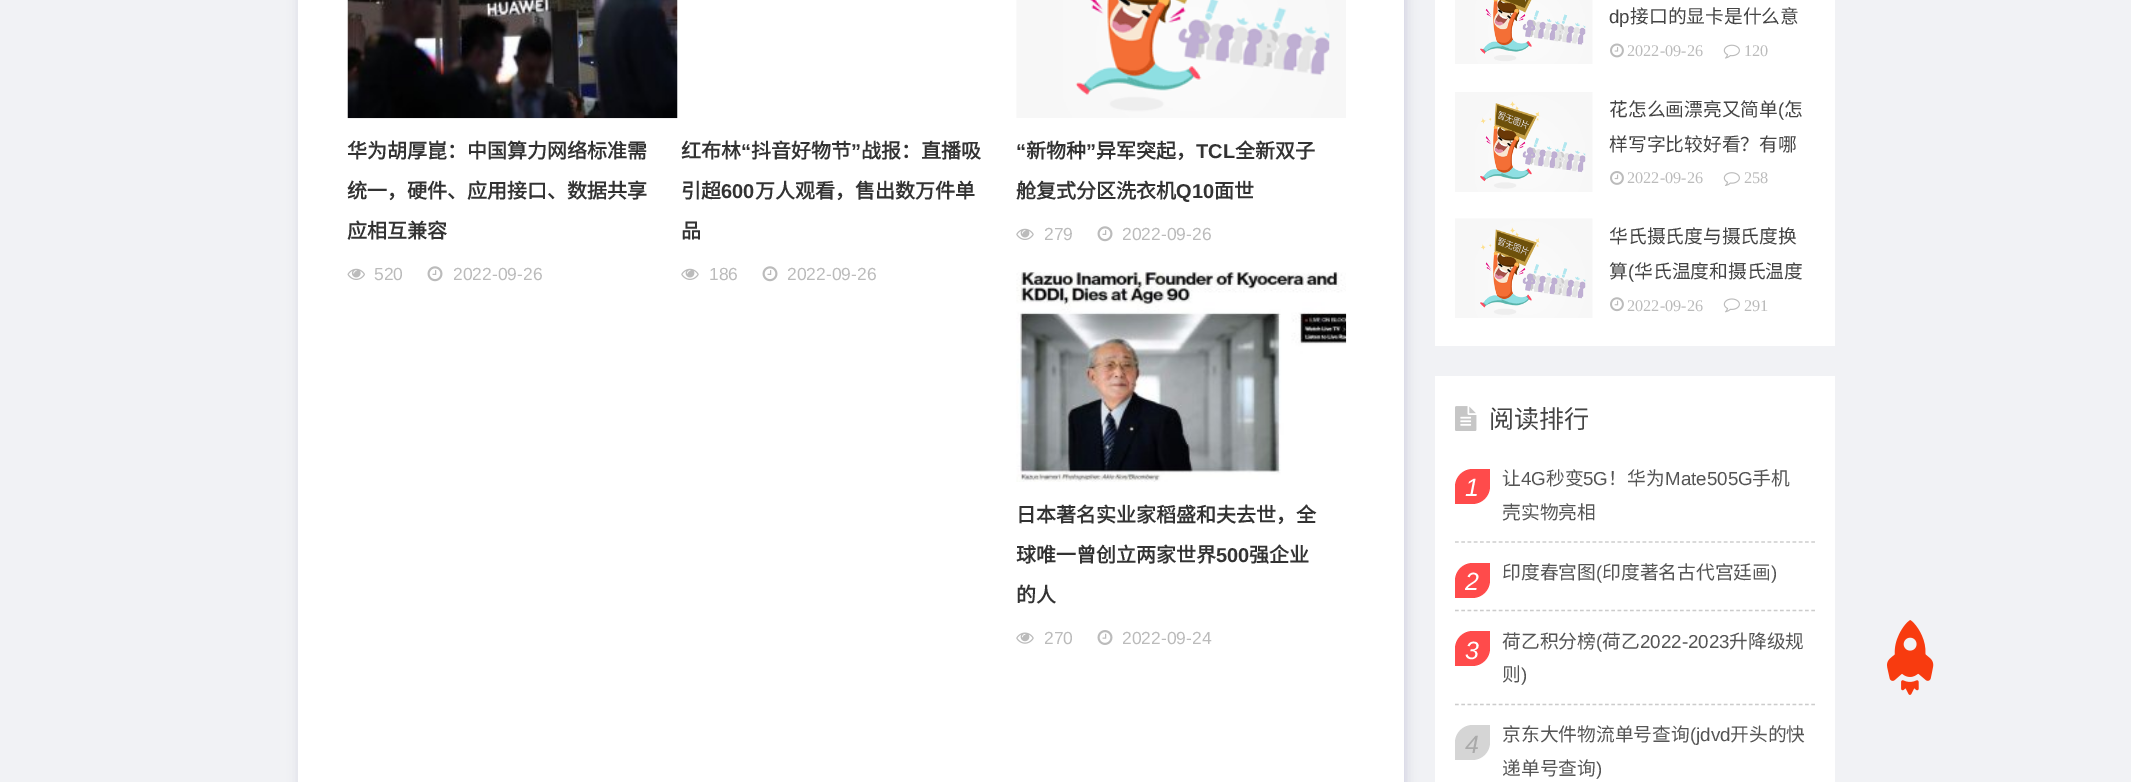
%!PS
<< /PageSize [2131 782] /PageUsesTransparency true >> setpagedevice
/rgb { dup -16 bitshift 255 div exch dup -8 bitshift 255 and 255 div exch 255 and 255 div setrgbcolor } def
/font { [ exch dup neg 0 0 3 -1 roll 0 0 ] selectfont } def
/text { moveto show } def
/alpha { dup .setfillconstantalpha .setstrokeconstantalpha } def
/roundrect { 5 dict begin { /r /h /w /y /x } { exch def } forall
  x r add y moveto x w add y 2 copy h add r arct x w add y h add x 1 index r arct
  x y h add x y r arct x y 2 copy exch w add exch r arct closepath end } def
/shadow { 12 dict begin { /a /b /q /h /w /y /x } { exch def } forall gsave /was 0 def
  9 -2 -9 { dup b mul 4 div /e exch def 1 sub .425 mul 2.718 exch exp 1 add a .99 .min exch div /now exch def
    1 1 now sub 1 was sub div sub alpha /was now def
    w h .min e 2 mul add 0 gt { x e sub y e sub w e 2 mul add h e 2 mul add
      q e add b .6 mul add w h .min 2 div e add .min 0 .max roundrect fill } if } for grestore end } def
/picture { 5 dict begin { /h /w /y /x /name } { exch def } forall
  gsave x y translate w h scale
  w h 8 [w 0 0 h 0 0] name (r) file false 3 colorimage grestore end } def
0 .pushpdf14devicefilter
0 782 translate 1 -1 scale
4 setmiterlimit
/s1 { /NotoSansCJKSC-Bold 20 font 16#333333 rgb } def
/s2 { /LiberationSans-Regular 17.5 font 16#BBBBBB rgb } def
/s3 { /LiberationSans-Bold 20 font 16#333333 rgb } def
/s4 { /LiberationSans-Regular 18.75 font 16#444444 rgb } def
/s5 { /NotoSansCJKSC-Regular 18.75 font 16#444444 rgb } def
/s6 { /LiberationSerif-Regular 16.25 font 16#BBBBBB rgb } def
/s7 { /NotoSansCJKSC-Regular 25 font 16#444444 rgb } def
/s8 { /LiberationSans-Italic 25 font 16#FFFFFF rgb } def
/s9 { /NotoSansCJKSC-Regular 18.75 font 16#555555 rgb } def
/s10 { /LiberationSans-Regular 18.75 font 16#555555 rgb } def
/s11 { /LiberationSans-Italic 25 font 16#AAAAAA rgb } def
16#F1F2F5 rgb
0 0 2131 782 rectfill
16#CFCDE0 rgb
300 -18 1106 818 0 6 1 shadow
16#FFFFFF rgb
298 0 1106 782 rectfill
(pic1.raw) 347 0 331 119 picture
s1
(华为胡厚崑：中国算力网络标准需) 347 158 text
(统一，硬件、应用接口、数据共享) 347 198 text
(应相互兼容) 347 238 text
(pic2.raw) 347 268 18 12 picture
s2
(520) 374 280 text
(pic3.raw) 427 266 16 16 picture
(2022-09-26) 453 280 text
s1
(红布林) 681 158 text
s3
(“) 741 158 text
s1
(抖音好物节) 751 158 text
s3
(”) 851 158 text
s1
(战报：直播吸) 861 158 text
(引超) 681 198 text
s3
(600) 721 198 text
s1
(万人观看，售出数万件单) 755 198 text
(品) 681 238 text
(pic4.raw) 681 268 18 12 picture
s2
(186) 709 280 text
(pic3.raw) 762 266 16 16 picture
(2022-09-26) 787 280 text
(pic5.raw) 1016 0 330 118 picture
s3
(“) 1016 158 text
s1
(新物种) 1026 158 text
s3
(”) 1086 158 text
s1
(异军突起，) 1096 158 text
s3
(TCL) 1196 158 text
s1
(全新双子) 1235 158 text
(舱复式分区洗衣机) 1016 198 text
s3
(Q10) 1176 198 text
s1
(面世) 1214 198 text
(pic4.raw) 1016 228 18 12 picture
s2
(279) 1044 240 text
(pic3.raw) 1097 226 16 16 picture
(2022-09-26) 1122 240 text
(pic6.raw) 1016 270 331 212 picture
s1
(日本著名实业家稻盛和夫去世，全) 1016 522 text
(球唯一曾创立两家世界) 1016 562 text
s3
(500) 1216 562 text
s1
(强企业) 1249 562 text
(的人) 1016 602 text
(pic7.raw) 1016 632 18 12 picture
s2
(270) 1044 644 text
(pic8.raw) 1097 630 16 15 picture
(2022-09-24) 1122 644 text
16#FFFFFF rgb
1435 0 400 346 rectfill
(pic9.raw) 1455 0 138 64 picture
s4
(dp) 1609 23 text
s5
(接口的显卡是什么意) 1630 23 text
(pic10.raw) 1610 43 14 15 picture
s6
(2022-09-26) 1627 56 text
(pic11.raw) 1723 44 17 15 picture
(120) 1744 56 text
(pic12.raw) 1455 92 138 100 picture
s5
(花怎么画漂亮又简单) 1609 116 text
s4
(\() 1778 116 text
s5
(怎) 1784 116 text
(样写字比较好看？有哪) 1609 151 text
(pic13.raw) 1610 171 14 14 picture
s6
(2022-09-26) 1627 183 text
(pic14.raw) 1723 172 17 14 picture
(258) 1744 183 text
(pic15.raw) 1455 218 138 100 picture
s5
(华氏摄氏度与摄氏度换) 1609 243 text
(算) 1609 278 text
s4
(\() 1628 278 text
s5
(华氏温度和摄氏温度) 1634 278 text
(pic16.raw) 1610 297 14 15 picture
s6
(2022-09-26) 1627 311 text
(pic17.raw) 1723 298 17 15 picture
(291) 1744 311 text
16#FFFFFF rgb
1435 376 400 406 rectfill
(pic18.raw) 1455 406 22 25 picture
s7
(阅读排行) 1489 428 text
16#CCCCCC rgb
1.2 setlinewidth
[3.75 2.5] 0 setdash
1455 542 moveto 1815 542 lineto stroke
16#FF4B4B rgb
1472.5 469 moveto 1490 469 lineto 1490 486.5 lineto 1490 496 1482 504 1472.5 504 curveto 1455 504 lineto 1455 486.5 lineto 1455 477 1463 469 1472.5 469 curveto closepath fill
s8
(1) 1465 496 text
s9
(让) 1502 485 text
s10
(4G) 1521 485 text
s9
(秒变) 1546 485 text
s10
(5G) 1583 485 text
s9
(！华为) 1608 485 text
s10
(Mate505G) 1665 485 text
s9
(手机) 1752 485 text
(壳实物亮相) 1502 519 text
16#CCCCCC rgb
1455 610.5 moveto 1815 610.5 lineto stroke
16#FF4B4B rgb
1472.5 563 moveto 1490 563 lineto 1490 580.5 lineto 1490 590 1482 598 1472.5 598 curveto 1455 598 lineto 1455 580.5 lineto 1455 571 1463 563 1472.5 563 curveto closepath fill
s8
(2) 1465 590 text
s9
(印度春宫图) 1502 579 text
s10
(\() 1596 579 text
s9
(印度著名古代宫廷画) 1602 579 text
s10
(\)) 1771 579 text
16#CCCCCC rgb
1455 704.5 moveto 1815 704.5 lineto stroke
16#FF4B4B rgb
1472.5 631 moveto 1490 631 lineto 1490 648.5 lineto 1490 658 1482 666 1472.5 666 curveto 1455 666 lineto 1455 648.5 lineto 1455 639 1463 631 1472.5 631 curveto closepath fill
s8
(3) 1465 659 text
s9
(荷乙积分榜) 1502 648 text
s10
(\() 1596 648 text
s9
(荷乙) 1602 648 text
s10
(2022-2023) 1640 648 text
s9
(升降级规) 1729 648 text
(则) 1502 681 text
s10
(\)) 1521 681 text
16#D5D5D5 rgb
1472.5 725 moveto 1490 725 lineto 1490 742.5 lineto 1490 752 1482 760 1472.5 760 curveto 1455 760 lineto 1455 742.5 lineto 1455 733 1463 725 1472.5 725 curveto closepath fill
s11
(4) 1465 753 text
s9
(京东大件物流单号查询) 1502 741 text
s10
(\(jdvd) 1690 741 text
s9
(开头的快) 1730 741 text
(递单号查询) 1502 775 text
s10
(\)) 1596 775 text
(pic19.raw) 1887 620 47 75 picture
.poppdf14devicefilter showpage
